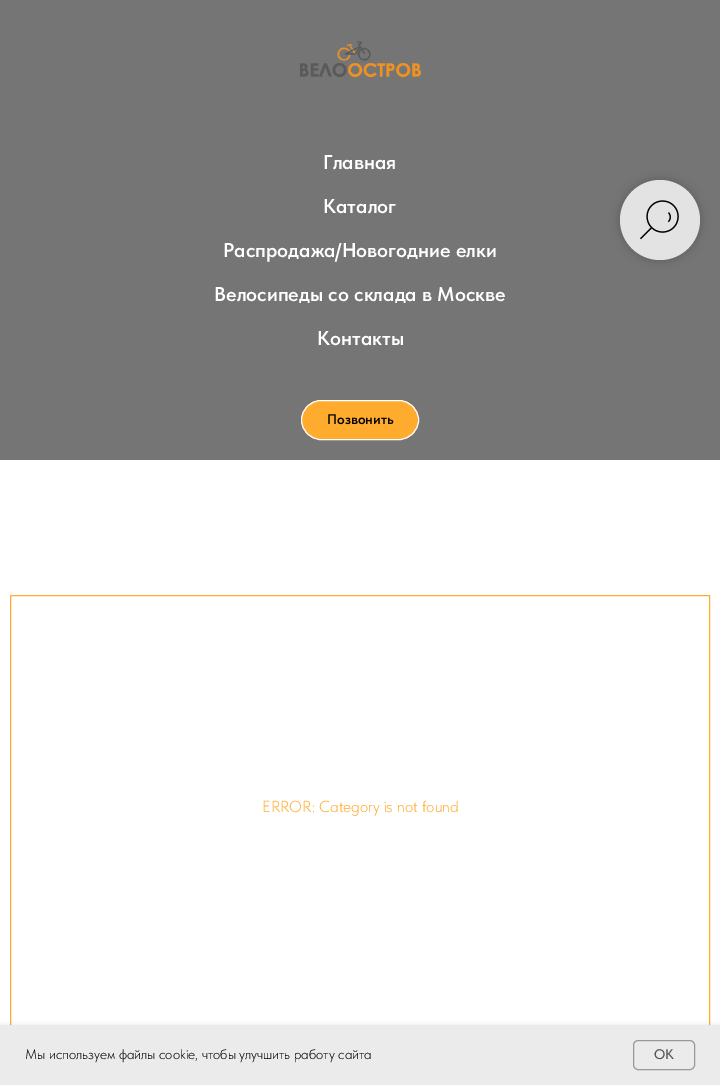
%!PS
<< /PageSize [720 1085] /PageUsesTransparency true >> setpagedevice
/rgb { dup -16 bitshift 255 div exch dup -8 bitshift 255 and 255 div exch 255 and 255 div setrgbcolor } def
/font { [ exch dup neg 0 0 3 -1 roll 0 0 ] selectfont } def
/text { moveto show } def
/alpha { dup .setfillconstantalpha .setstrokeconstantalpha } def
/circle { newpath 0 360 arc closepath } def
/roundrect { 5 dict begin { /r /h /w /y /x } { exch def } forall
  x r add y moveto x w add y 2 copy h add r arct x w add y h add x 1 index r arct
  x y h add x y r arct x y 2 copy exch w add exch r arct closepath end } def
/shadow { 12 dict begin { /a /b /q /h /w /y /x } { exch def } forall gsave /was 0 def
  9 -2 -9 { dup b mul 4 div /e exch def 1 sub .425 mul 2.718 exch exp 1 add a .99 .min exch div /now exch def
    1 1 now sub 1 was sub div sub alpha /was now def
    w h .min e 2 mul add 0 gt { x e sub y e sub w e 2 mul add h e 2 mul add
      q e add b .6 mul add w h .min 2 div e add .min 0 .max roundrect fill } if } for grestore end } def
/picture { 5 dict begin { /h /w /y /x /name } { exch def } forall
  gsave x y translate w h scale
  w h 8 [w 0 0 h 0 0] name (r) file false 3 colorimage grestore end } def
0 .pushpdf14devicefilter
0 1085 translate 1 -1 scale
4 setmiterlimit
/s1 { /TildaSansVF-SemiBold 20 font 16#FFFFFF rgb } def
/s2 { /TildaSansVF-SemiBold 14 font 16#000000 rgb } def
/s3 { /TildaSansVF-Light 16 font 16#FFAB2E rgb } def
/s4 { /TildaSansVF-Light 14 font 16#000000 rgb } def
/s5 { /TildaSansVF-Medium 14 font 16#555555 rgb } def
16#FFFFFF rgb
0 0 720 1085 rectfill
16#757575 rgb
0 0 720 460 rectfill
(pic1.raw) 300 41 122 37 picture
s1
(Главная) 323 169 text
(Каталог) 323 213 text
(Распродажа/Новогодние елки) 223 257 text
(Велосипеды со склада в Москве) 214 301 text
(Контакты) 317 345 text
16#FFAB2E rgb
301.5 400.5 117 39 19.5 roundrect gsave fill grestore
16#FFFFFF rgb
stroke
s2
(Позвонить) 327 424 text
gsave
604 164 moveto 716 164 lineto 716 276 lineto 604 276 lineto closepath 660 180 moveto 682 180 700 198 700 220 curveto 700 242 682 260 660 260 curveto 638 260 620 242 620 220 curveto 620 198 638 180 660 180 curveto closepath eoclip newpath
620 180 80 80 40 5 0.2 shadow
grestore
0.8 alpha
16#FFFFFF rgb
660 220 40 circle fill
1 alpha
(pic2.raw) 640 200 39 40 picture
16#FFAB2E rgb
10.5 595.5 699 433 rectstroke
s3
(ERROR: Category is not found) 262 812 text
16#000000 rgb
0 1025 720 60 0 2.5 0.1 shadow
16#EBEBEB rgb
0 1025 720 60 rectfill
s4
(Мы используем файлы cookie, чтобы улучшить работу сайта) 25 1059 text
16#999999 rgb
633.5 1040.5 61 29 4.5 roundrect stroke
s5
(OK) 654 1059 text
.poppdf14devicefilter showpage
